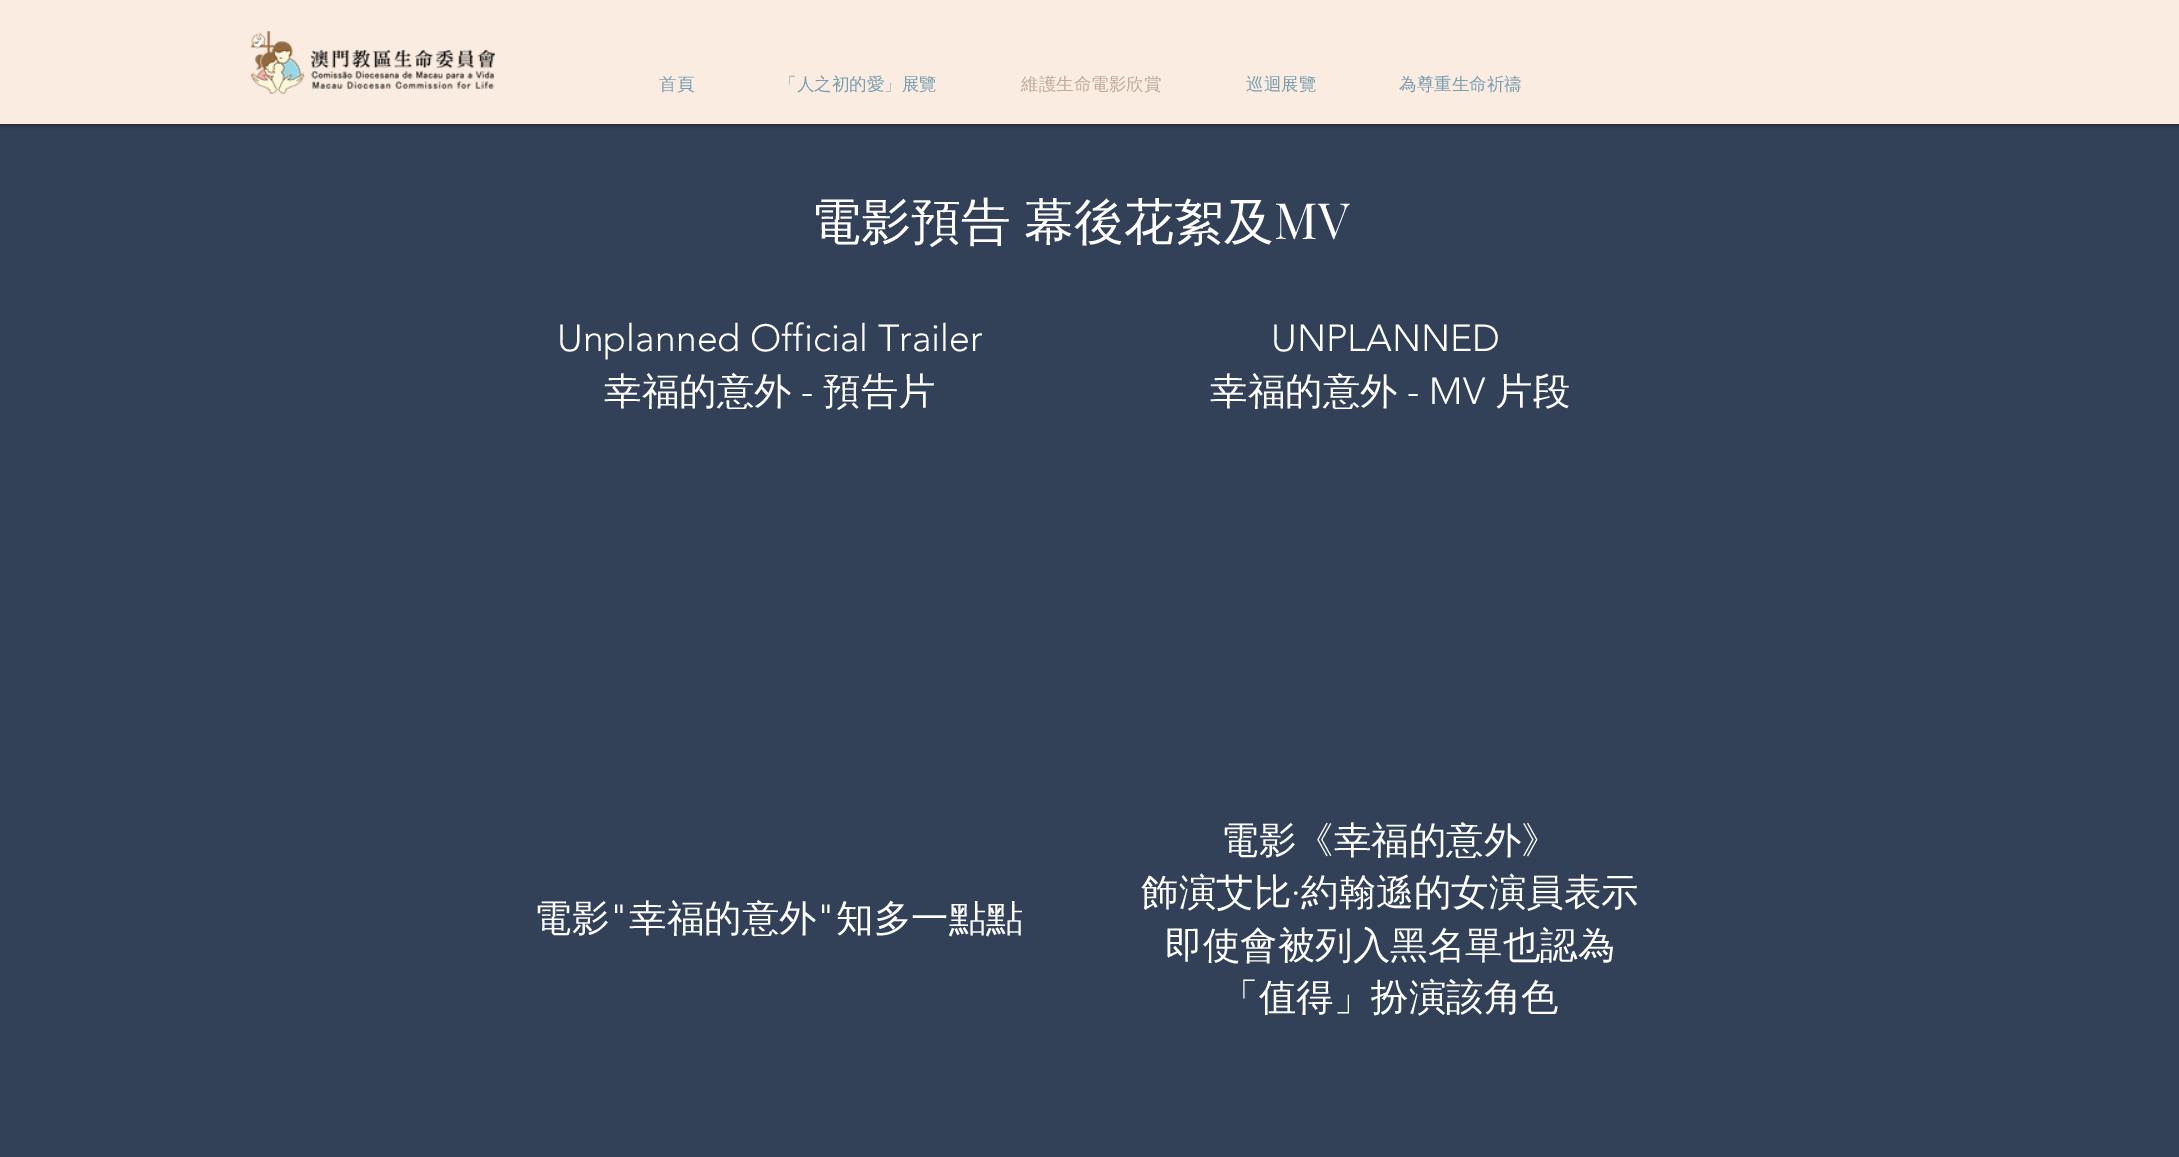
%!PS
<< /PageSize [2179 1157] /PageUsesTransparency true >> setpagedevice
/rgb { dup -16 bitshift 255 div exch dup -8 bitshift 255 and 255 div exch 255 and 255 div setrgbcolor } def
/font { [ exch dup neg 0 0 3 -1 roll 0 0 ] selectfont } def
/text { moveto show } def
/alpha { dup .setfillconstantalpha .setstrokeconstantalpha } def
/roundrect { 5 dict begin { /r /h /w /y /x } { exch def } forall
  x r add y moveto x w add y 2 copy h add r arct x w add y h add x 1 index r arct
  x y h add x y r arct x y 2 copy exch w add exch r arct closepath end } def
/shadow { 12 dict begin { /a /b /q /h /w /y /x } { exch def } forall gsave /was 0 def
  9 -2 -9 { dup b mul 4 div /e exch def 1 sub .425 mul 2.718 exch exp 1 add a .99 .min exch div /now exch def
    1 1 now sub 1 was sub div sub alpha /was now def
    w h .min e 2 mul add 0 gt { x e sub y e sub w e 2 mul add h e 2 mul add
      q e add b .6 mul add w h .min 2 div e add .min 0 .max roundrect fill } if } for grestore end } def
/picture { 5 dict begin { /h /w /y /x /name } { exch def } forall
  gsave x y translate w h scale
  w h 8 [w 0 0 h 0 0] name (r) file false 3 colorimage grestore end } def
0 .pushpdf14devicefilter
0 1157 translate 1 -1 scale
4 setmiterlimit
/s1 { /WenQuanYiZenHei-Medium 17.5 font 16#799DB1 rgb } def
/s2 { /WenQuanYiZenHei-Medium 17.5 font 16#BDAB9B rgb } def
/s3 { /PlayfairDisplay-Regular 50 font 16#FFFFFF rgb } def
/s4 { /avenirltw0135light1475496-Light 37.5 font 16#FFFFFF rgb } def
/s5 { /WenQuanYiZenHei-Medium 37.5 font 16#FFFFFF rgb } def
16#324158 rgb
0 0 2179 1157 rectfill
16#000000 rgb
0 0 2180 124 0 3 0.7 shadow
16#FAECE1 rgb
0 0 2179 124 rectfill
(pic1.raw) 251 31 244 63 picture
s1
(首頁) 659 90 text
(「人之初的愛」展覽) 779 90 text
s2
(維護生命電影欣賞) 1021 90 text
s1
(巡迴展覽) 1246 90 text
(為尊重生命祈禱) 1399 90 text
/WenQuanYiZenHei-Medium 50 font
16#FFFFFF rgb
811 239 moveto -2 0 32 (電影預告 幕後花絮及) widthshow
s3
(MV) 1274 239 text
s4
(Unplanned Official Trailer) 557 351 text
s5
(幸福的意外) 604 404 text
s4
(-) 801 404 text
s5
(預告片) 823 404 text
s4
(UNPLANNED) 1271 351 text
s5
(幸福的意外) 1210 404 text
s4
(- MV) 1407 404 text
s5
(片段) 1495 404 text
(電影) 534 931 text
s4
(") 609 931 text
s5
(幸福的意外) 629 931 text
s4
(") 816 931 text
s5
(知多一點點) 836 931 text
(電影《幸福的意外》) 1221 853 text
(飾演艾比) 1141 905 text
s4
(·) 1291 905 text
s5
(約翰遜的女演員表示) 1301 905 text
(即使會被列入黑名單也認為) 1165 958 text
(「值得」扮演該角色) 1221 1010 text
.poppdf14devicefilter showpage
